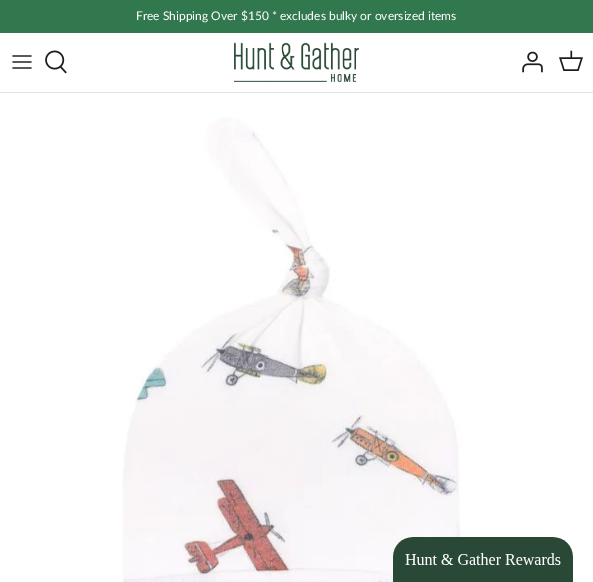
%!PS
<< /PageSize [593 582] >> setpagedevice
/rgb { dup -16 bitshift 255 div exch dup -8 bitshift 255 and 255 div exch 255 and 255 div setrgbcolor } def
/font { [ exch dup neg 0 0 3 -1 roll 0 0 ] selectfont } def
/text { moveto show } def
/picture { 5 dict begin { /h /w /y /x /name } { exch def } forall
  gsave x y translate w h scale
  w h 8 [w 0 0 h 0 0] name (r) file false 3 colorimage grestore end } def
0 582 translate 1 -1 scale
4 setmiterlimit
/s1 { /Lato-Regular 12 font 16#FFFFFF rgb } def
16#FFFFFF rgb
0 0 593 582 rectfill
16#31784E rgb
0 0 593 33 rectfill
s1
(Free Shipping Over $150 * excludes bulky or oversized items) 136 20 text
16#DFE3E8 rgb
0 92 593 1 rectfill
(pic1.raw) 12 55 20 14 picture
(pic2.raw) 45 50 22 24 picture
(pic3.raw) 234 42 125 40 picture
(pic4.raw) 522 51 21 22 picture
(pic5.raw) 559 50 24 21 picture
(pic6.raw) 122 117 341 465 picture
(pic7.raw) 393 537 180 45 picture
showpage
